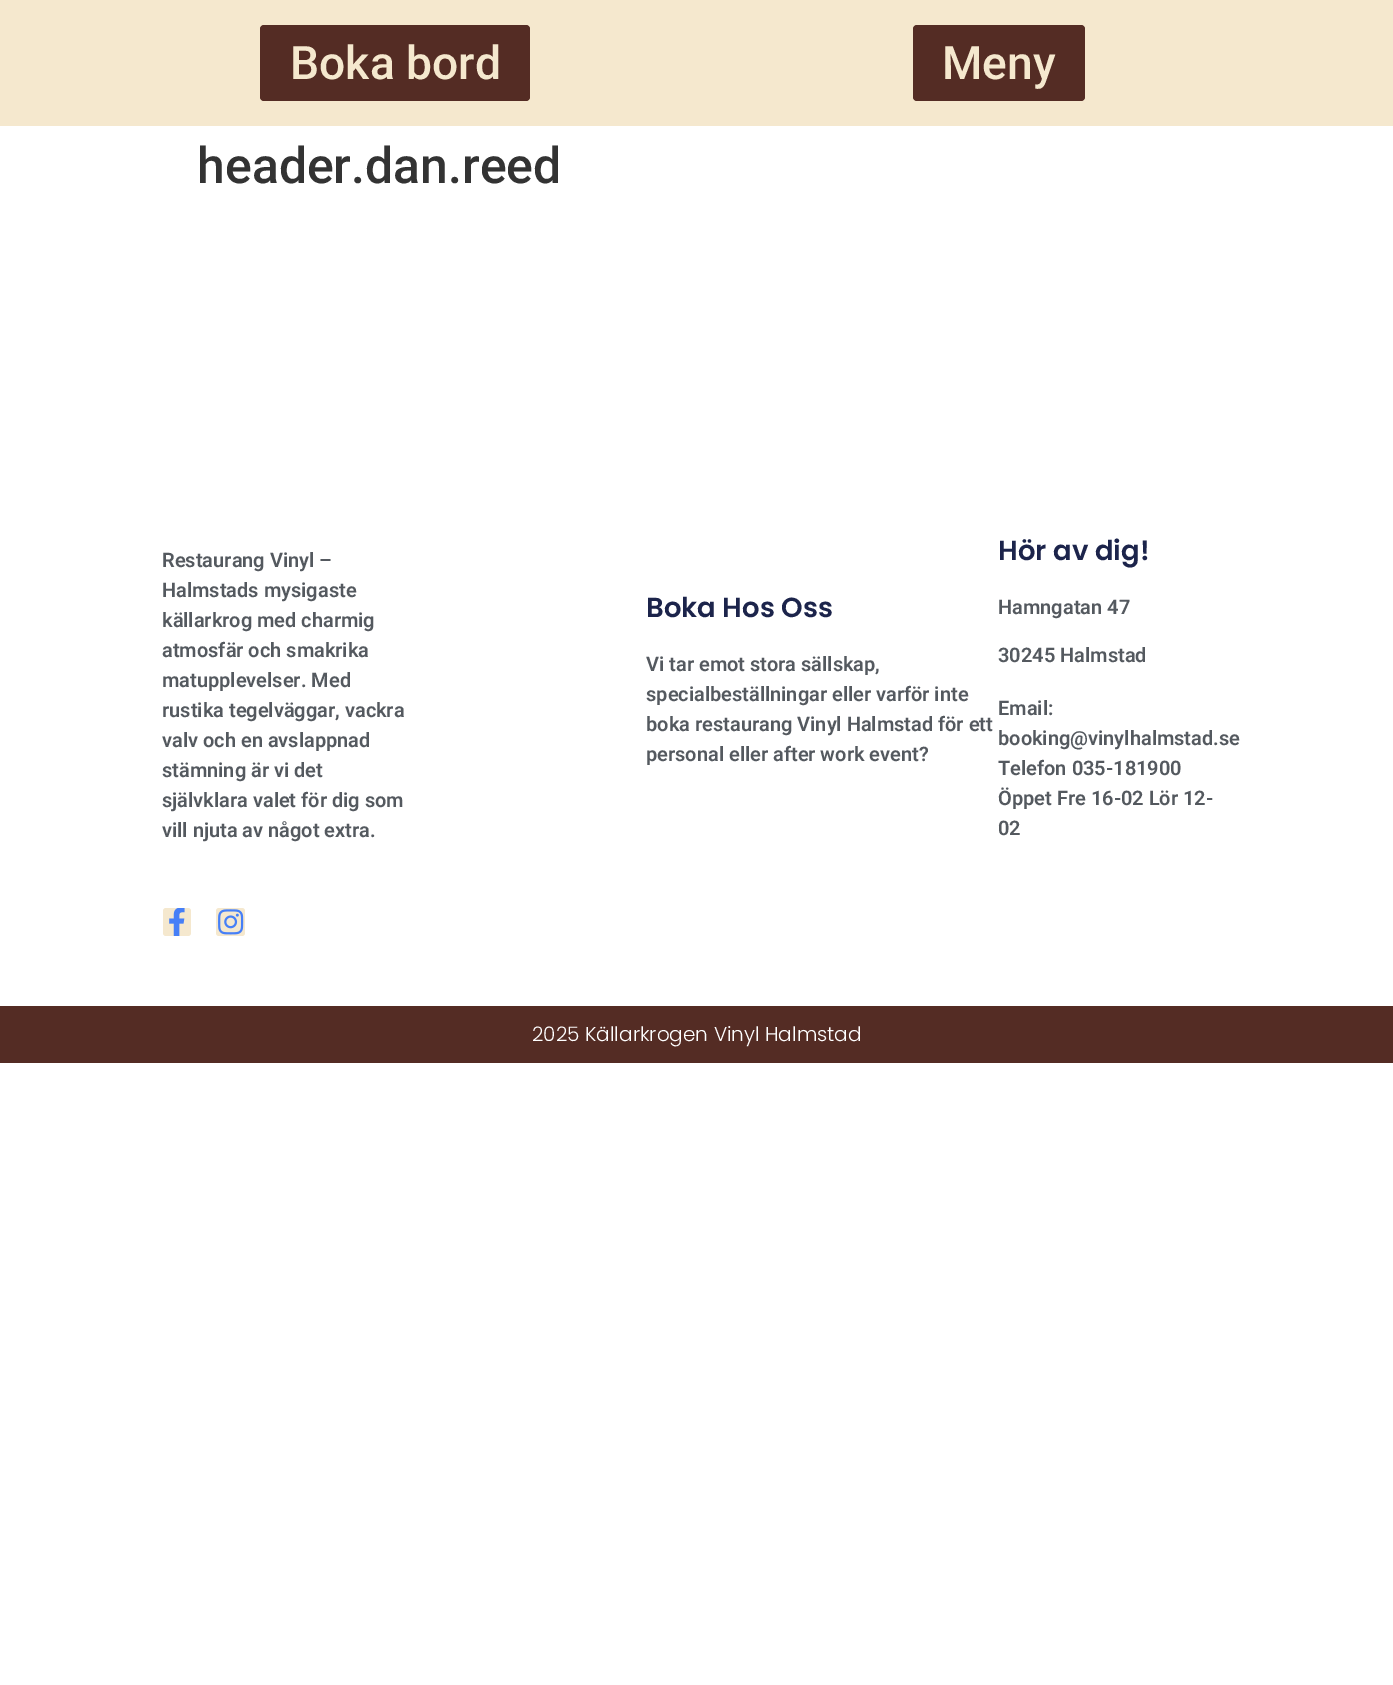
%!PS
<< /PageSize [1393 1685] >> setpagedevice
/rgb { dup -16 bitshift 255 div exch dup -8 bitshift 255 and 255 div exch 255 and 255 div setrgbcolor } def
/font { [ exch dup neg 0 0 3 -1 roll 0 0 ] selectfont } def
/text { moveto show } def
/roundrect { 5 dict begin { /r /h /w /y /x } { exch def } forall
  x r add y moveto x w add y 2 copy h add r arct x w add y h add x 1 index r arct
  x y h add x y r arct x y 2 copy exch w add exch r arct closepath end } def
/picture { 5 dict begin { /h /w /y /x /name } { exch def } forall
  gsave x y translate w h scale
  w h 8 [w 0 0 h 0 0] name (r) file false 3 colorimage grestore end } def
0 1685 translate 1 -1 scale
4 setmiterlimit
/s1 { /Roboto-Medium 46.25 font 16#F5E8CE rgb } def
/s2 { /Roboto-Medium 50 font 16#333333 rgb } def
/s3 { /Roboto-SemiBold 20 font 16#54595F rgb } def
/s4 { /Poppins-SemiBold 27.5 font 16#1C244B rgb } def
/s5 { /Poppins-Light 20 font 16#FFFFFF rgb } def
16#FFFFFF rgb
0 0 1393 1685 rectfill
16#F5E8CE rgb
0 0 1393 126 rectfill
16#542C24 rgb
260 25 270 76 4 roundrect fill
s1
(Boka bord) 290 79 text
16#542C24 rgb
913 25 172 76 4 roundrect fill
s1
(Meny) 942 79 text
s2
(header.dan.reed) 197 183 text
s3
(Restaurang Vinyl –) 162 567 text
(Halmstads mysigaste) 162 597 text
(källarkrog med charmig) 162 627 text
(atmosfär och smakrika) 162 657 text
(matupplevelser. Med) 162 687 text
(rustika tegelväggar, vackra) 162 717 text
(valv och en avslappnad) 162 747 text
(stämning är vi det) 162 777 text
(självklara valet för dig som) 162 807 text
(vill njuta av något extra.) 162 837 text
16#F5E8CE rgb
163 908 28 28 3 roundrect fill
(pic1.raw) 169 908 16 28 picture
216 908 29 28 3 roundrect fill
(pic2.raw) 218 909 26 26 picture
s4
(Boka Hos Oss) 646 617 text
s3
(Vi tar emot stora sällskap,) 646 671 text
(specialbeställningar eller varför inte) 646 701 text
(boka restaurang Vinyl Halmstad för ett) 646 731 text
(personal eller after work event?) 646 761 text
s4
(Hör av dig!) 998 560 text
s3
(Hamngatan 47) 998 614 text
(30245 Halmstad) 998 662 text
(Email:) 998 715 text
(booking@vinylhalmstad.se) 998 745 text
(Telefon 035-181900) 998 775 text
(Öppet Fre 16-02 Lör 12-) 998 805 text
(02) 998 835 text
16#542C24 rgb
0 1006 1393 57 rectfill
s5
(2025 Källarkrogen Vinyl Halmstad) 532 1041 text
showpage
